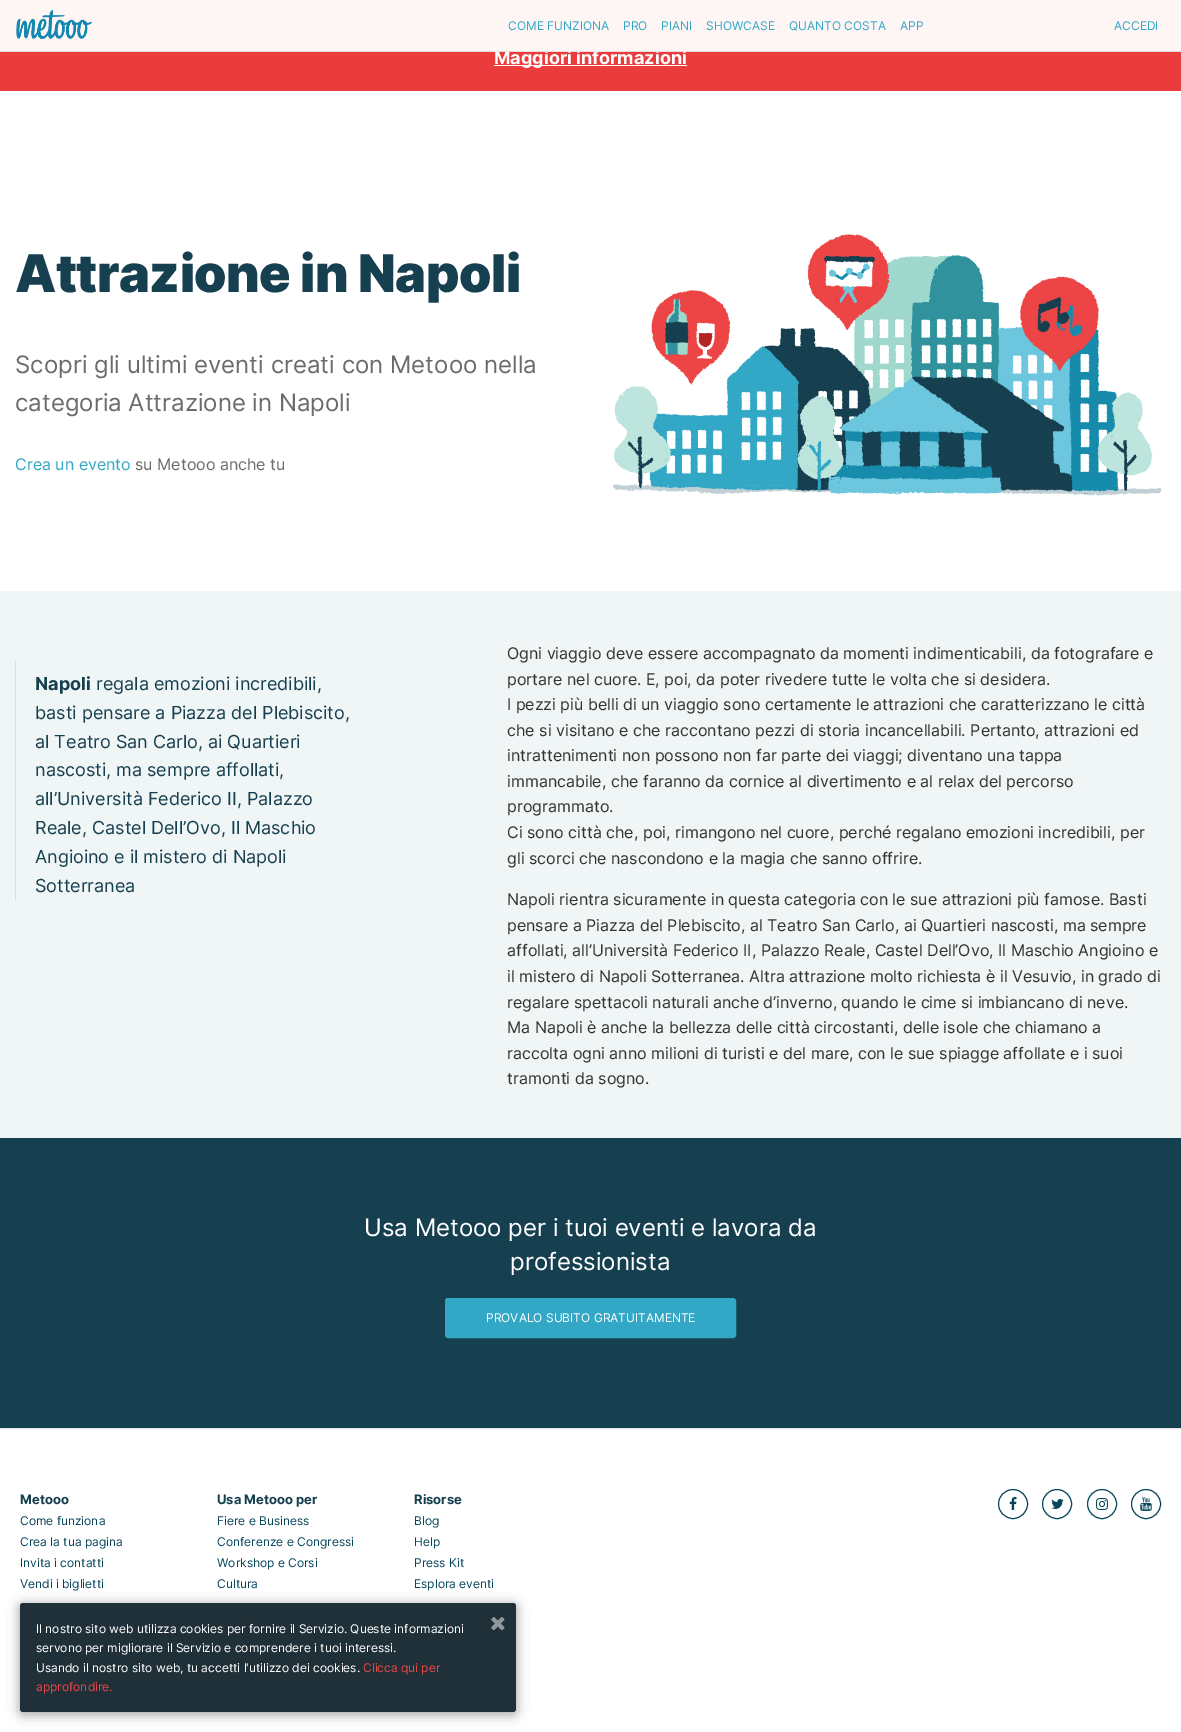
%!PS
<< /PageSize [1181 1732] /PageUsesTransparency true >> setpagedevice
/rgb { dup -16 bitshift 255 div exch dup -8 bitshift 255 and 255 div exch 255 and 255 div setrgbcolor } def
/font { [ exch dup neg 0 0 3 -1 roll 0 0 ] selectfont } def
/text { moveto show } def
/alpha { dup .setfillconstantalpha .setstrokeconstantalpha } def
/circle { newpath 0 360 arc closepath } def
/roundrect { 5 dict begin { /r /h /w /y /x } { exch def } forall
  x r add y moveto x w add y 2 copy h add r arct x w add y h add x 1 index r arct
  x y h add x y r arct x y 2 copy exch w add exch r arct closepath end } def
/shadow { 12 dict begin { /a /b /q /h /w /y /x } { exch def } forall gsave /was 0 def
  9 -2 -9 { dup b mul 4 div /e exch def 1 sub .425 mul 2.718 exch exp 1 add a .99 .min exch div /now exch def
    1 1 now sub 1 was sub div sub alpha /was now def
    w h .min e 2 mul add 0 gt { x e sub y e sub w e 2 mul add h e 2 mul add
      q e add b .6 mul add w h .min 2 div e add .min 0 .max roundrect fill } if } for grestore end } def
/picture { 5 dict begin { /h /w /y /x /name } { exch def } forall
  gsave x y translate w h scale
  w h 8 [w 0 0 h 0 0] name (r) file false 3 colorimage grestore end } def
0 .pushpdf14devicefilter
0 1732 translate 1 -1 scale
4 setmiterlimit
/s1 { /Inter-Bold 18 font 16#FFFFFF rgb } def
/s2 { /Inter-Regular 12 font 16#32A7C6 rgb } def
/s3 { /Inter-Regular 24 font 16#6C6C6C rgb } def
/s4 { /Inter-Regular 16 font 16#32A7C6 rgb } def
/s5 { /Inter-Regular 16 font 16#6C6C6C rgb } def
/s6 { /Inter-Bold 18 font 16#163F50 rgb } def
/s7 { /Inter-Regular 18 font 16#163F50 rgb } def
/s8 { /Inter-Regular 16 font 16#333333 rgb } def
/s9 { /Inter-Regular 24 font 16#FFFFFF rgb } def
/s10 { /Inter-Regular 12 font 16#FFFFFF rgb } def
/s11 { /Inter-Bold 13 font 16#163F50 rgb } def
/s12 { /Inter-Regular 12 font 16#07455B rgb } def
/s13 { /Inter-Regular 12 font 16#EC4545 rgb } def
16#FFFFFF rgb
0 0 1181 1732 rectfill
16#EA3C3D rgb
0 0 1181 91 rectfill
16#FFFFFF rgb
494 65 193 1 rectfill
s1
(Maggiori informazioni) 494 64 text
0.95 alpha
0 0 1181 52 rectfill
0.1 alpha
16#000000 rgb
0 51 1181 1 rectfill
1 alpha
(pic1.raw) 16 10 76 29 picture
s2
(COME FUNZIONA) 508 30 text
(PRO) 623 30 text
(PIANI) 661 30 text
(SHOWCASE) 706 30 text
(QUANTO COSTA) 789 30 text
(APP) 900 30 text
(ACCEDI) 1114 30 text
/Inter-Black 52 font
16#163F50 rgb
15 292 moveto -0.5 0 (Attrazione in Napoli) ashow
s3
(Scopri gli ultimi eventi creati con Metooo nella) 15 373 text
(categoria Attrazione in Napoli) 15 411 text
s4
(Crea un evento) 15 470 text
s5
(su Metooo anche tu) 135 470 text
(pic2.raw) 613 234 549 262 picture
16#F0F5F6 rgb
0 591 1181 547 rectfill
16#DDDDDD rgb
15 661 1 239 rectfill
s6
(Napoli) 35 690 text
s7
(regala emozioni incredibili,) 96 690 text
(basti pensare a Piazza del Plebiscito,) 35 719 text
(al Teatro San Carlo, ai Quartieri) 35 748 text
(nascosti, ma sempre affollati,) 35 776 text
(all’Università Federico II, Palazzo) 35 805 text
(Reale, Castel Dell’Ovo, Il Maschio) 35 834 text
(Angioino e il mistero di Napoli) 35 863 text
(Sotterranea) 35 892 text
s8
(Ogni viaggio deve essere accompagnato da momenti indimenticabili, da fotografare e) 507 659 text
(portare nel cuore. E, poi, da poter rivedere tutte le volta che si desidera.) 507 685 text
(I pezzi più belli di un viaggio sono certamente le attrazioni che caratterizzano le città) 507 710 text
(che si visitano e che raccontano pezzi di storia incancellabili. Pertanto, attrazioni ed) 507 736 text
(intrattenimenti non possono non far parte dei viaggi; diventano una tappa) 507 761 text
(immancabile, che faranno da cornice al divertimento e al relax del percorso) 507 787 text
(programmato.) 507 812 text
(Ci sono città che, poi, rimangono nel cuore, perché regalano emozioni incredibili, per) 507 838 text
(gli scorci che nascondono e la magia che sanno offrire.) 507 864 text
(Napoli rientra sicuramente in questa categoria con le sue attrazioni più famose. Basti) 507 905 text
(pensare a Piazza del Plebiscito, al Teatro San Carlo, ai Quartieri nascosti, ma sempre) 507 931 text
(affollati, all’Università Federico II, Palazzo Reale, Castel Dell’Ovo, Il Maschio Angioino e) 507 956 text
(il mistero di Napoli Sotterranea. Altra attrazione molto richiesta è il Vesuvio, in grado di) 507 982 text
(regalare spettacoli naturali anche d’inverno, quando le cime si imbiancano di neve.) 507 1008 text
(Ma Napoli è anche la bellezza delle città circostanti, delle isole che chiamano a) 507 1033 text
(raccolta ogni anno milioni di turisti e del mare, con le sue spiagge affollate e i suoi) 507 1059 text
(tramonti da sogno.) 507 1084 text
16#163F50 rgb
0 1138 1181 290 rectfill
s9
(Usa Metooo per i tuoi eventi e lavora da) 364 1236 text
(professionista) 510 1270 text
16#32A7C6 rgb
445.5 1298.5 290 39 2.5 roundrect gsave fill grestore
stroke
s10
(PROVALO SUBITO GRATUITAMENTE) 486 1322 text
16#E6E6E6 rgb
0 1428 1181 1 rectfill
s11
(Metooo) 20 1504 text
s12
(Come funziona) 20 1525 text
(Crea la tua pagina) 20 1546 text
(Invita i contatti) 20 1567 text
(Vendi i biglietti) 20 1588 text
s11
(Usa Metooo per) 217 1504 text
s12
(Fiere e Business) 217 1525 text
(Conferenze e Congressi) 217 1546 text
(Workshop e Corsi) 217 1567 text
(Cultura) 217 1588 text
s11
(Risorse) 414 1504 text
s12
(Blog) 414 1525 text
(Help) 414 1546 text
(Press Kit) 414 1567 text
(Esplora eventi) 414 1588 text
1013 1504 14.5 circle stroke
(pic3.raw) 1009 1497 8 13 picture
1057 1504 14.5 circle stroke
(pic4.raw) 1051 1499 13 10 picture
1102 1504 14.5 circle stroke
(pic5.raw) 1096 1498 12 12 picture
1146 1504 14.5 circle stroke
(pic6.raw) 1140 1497 12 14 picture
16#000000 rgb
20 1605 496 109 3 6 0.4 shadow
16#203038 rgb
20 1603 496 109 3 roundrect fill
s10
(Il nostro sito web utilizza cookies per fornire il Servizio. Queste informazioni) 36 1633 text
(servono per migliorare il Servizio e comprendere i tuoi interessi.) 36 1652 text
(Usando il nostro sito web, tu accetti l'utilizzo dei cookies.) 36 1672 text
s13
(Clicca qui per) 363 1672 text
(approfondire.) 36 1691 text
(pic7.raw) 491 1617 14 14 picture
.poppdf14devicefilter showpage
